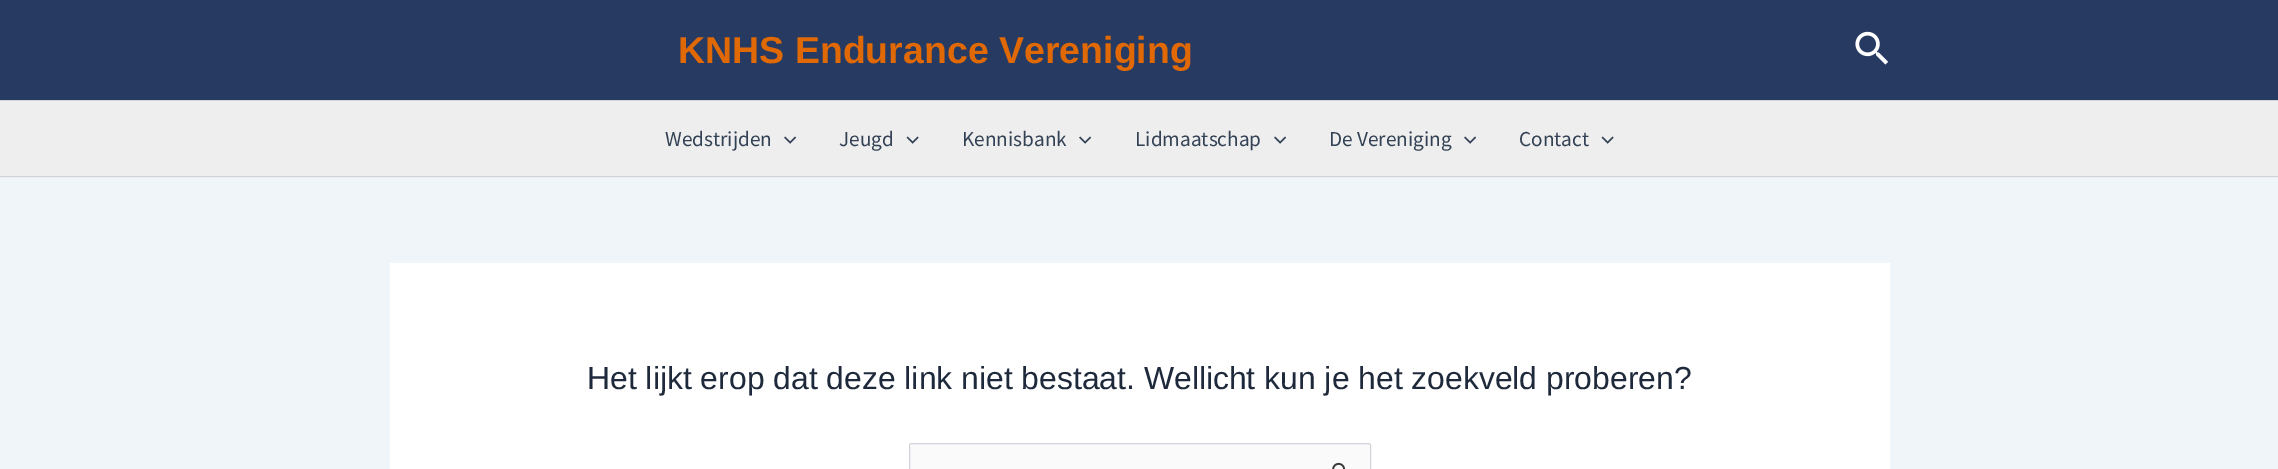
%!PS
<< /PageSize [2278 469] >> setpagedevice
/rgb { dup -16 bitshift 255 div exch dup -8 bitshift 255 and 255 div exch 255 and 255 div setrgbcolor } def
/font { [ exch dup neg 0 0 3 -1 roll 0 0 ] selectfont } def
/text { moveto show } def
/roundrect { 5 dict begin { /r /h /w /y /x } { exch def } forall
  x r add y moveto x w add y 2 copy h add r arct x w add y h add x 1 index r arct
  x y h add x y r arct x y 2 copy exch w add exch r arct closepath end } def
/picture { 5 dict begin { /h /w /y /x /name } { exch def } forall
  gsave x y translate w h scale
  w h 8 [w 0 0 h 0 0] name (r) file false 3 colorimage grestore end } def
0 469 translate 1 -1 scale
4 setmiterlimit
/s1 { /LiberationSans-Bold 37.5 font 16#E06905 rgb } def
/s2 { /SourceSansPro-Regular 21.25 font 16#334155 rgb } def
/s3 { /LiberationSans-Regular 31.9 font 16#1E293B rgb } def
16#F0F5FA rgb
0 0 2278 469 rectfill
16#273A62 rgb
0 0 2278 100 rectfill
16#D1D5DB rgb
0 100 2278 1 rectfill
s1
(KNHS Endurance Vereniging) 678 63 text
(pic1.raw) 1855 31 33 34 picture
16#EEEEEE rgb
0 101 2278 77 rectfill
16#D1D5DB rgb
0 176 2278 1 rectfill
s2
(Wedstrijden) 665 146 text
(pic2.raw) 784 136 13 8 picture
(Jeugd) 839 146 text
(pic3.raw) 906 136 13 8 picture
(Kennisbank) 962 146 text
(pic2.raw) 1079 136 13 8 picture
(Lidmaatschap) 1135 146 text
(pic4.raw) 1274 136 12 8 picture
(De Vereniging) 1329 146 text
(pic4.raw) 1464 136 12 8 picture
(Contact) 1519 146 text
(pic3.raw) 1601 136 13 8 picture
16#FFFFFF rgb
390 263 1500 206 rectfill
s3
(Het lijkt erop dat deze link niet bestaat. Wellicht kun je het zoekveld proberen?) 587 389 text
16#FAFAFA rgb
909.5 443.5 461 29 2 roundrect gsave fill grestore
16#D1D5DB rgb
stroke
(pic5.raw) 1332 462 14 7 picture
showpage
